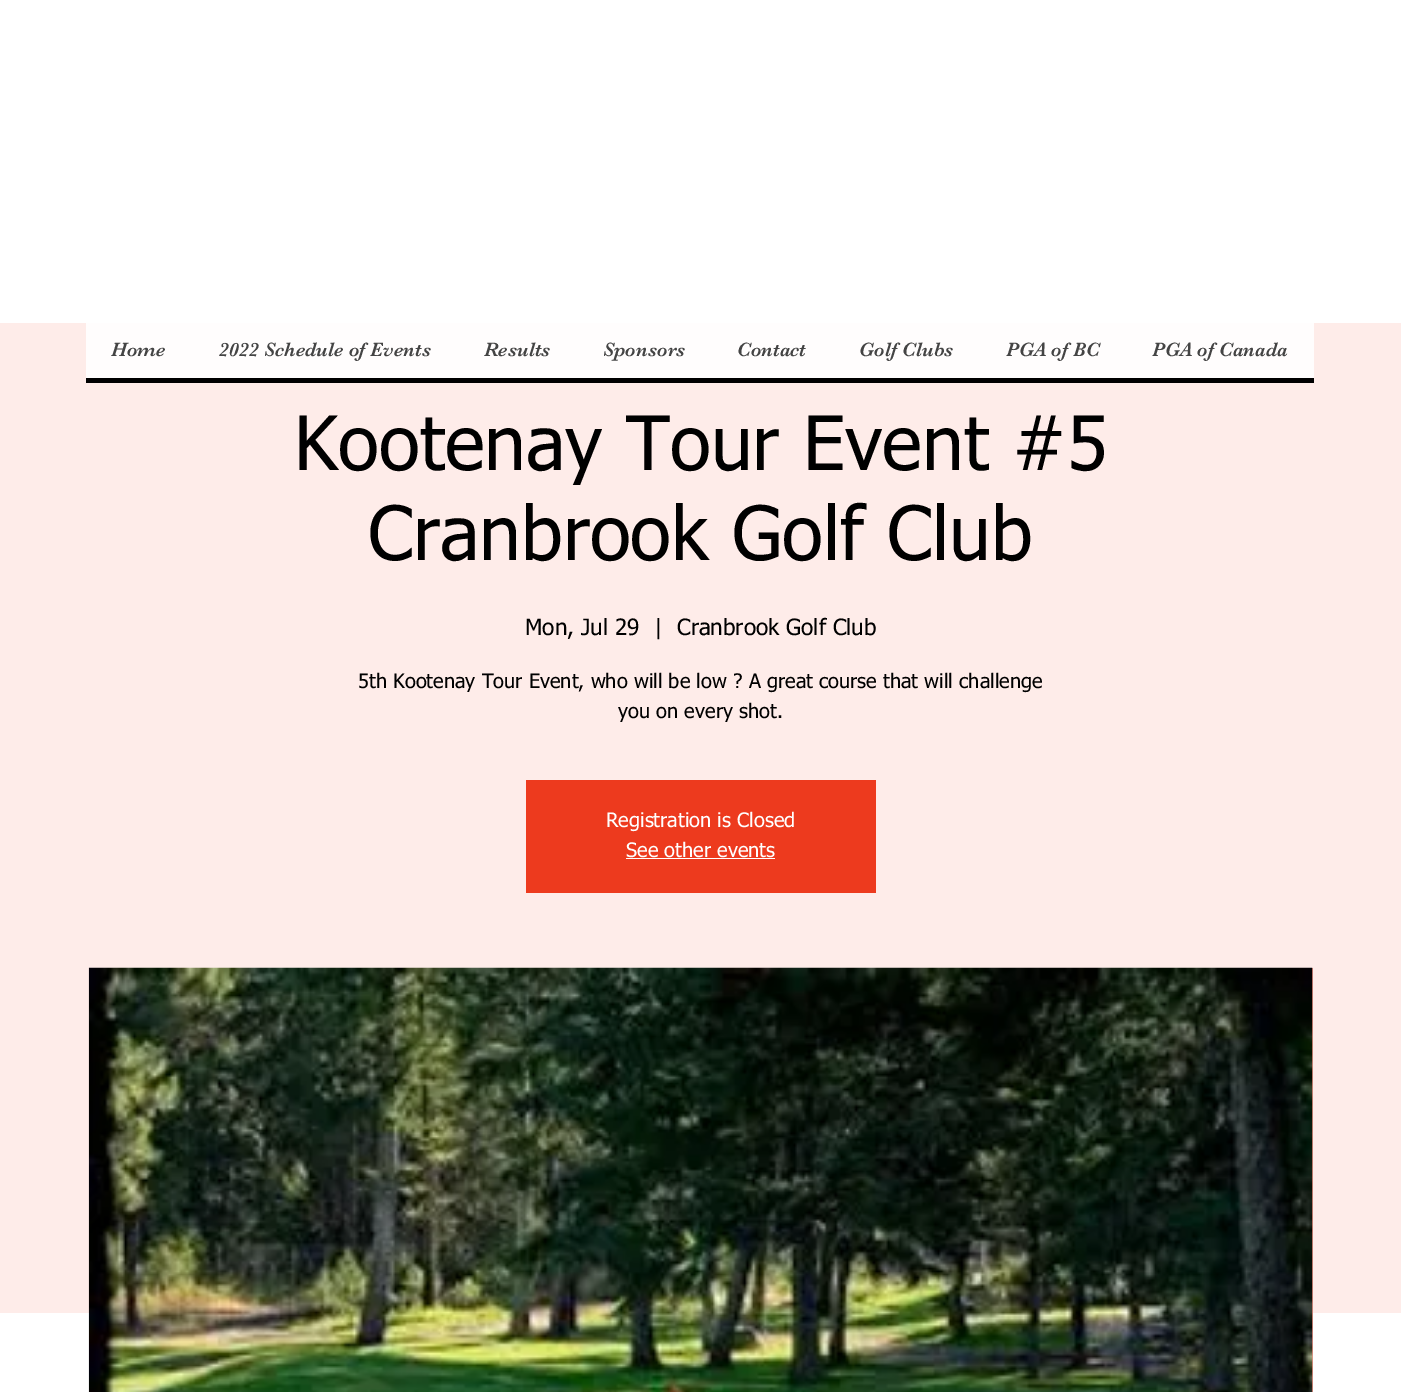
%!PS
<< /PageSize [1401 1392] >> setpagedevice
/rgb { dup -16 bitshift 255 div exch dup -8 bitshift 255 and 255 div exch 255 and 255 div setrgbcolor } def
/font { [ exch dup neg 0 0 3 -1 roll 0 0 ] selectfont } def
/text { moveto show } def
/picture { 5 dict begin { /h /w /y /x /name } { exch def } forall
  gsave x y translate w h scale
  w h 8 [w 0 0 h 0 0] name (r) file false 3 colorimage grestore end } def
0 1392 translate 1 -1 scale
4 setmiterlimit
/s1 { /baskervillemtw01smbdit-Regular 20 font 16#444444 rgb } def
/s2 { /tahoma-Regular 75 font 16#000000 rgb } def
/s3 { /tahoma-Regular 22.5 font 16#000000 rgb } def
/s4 { /tahoma-Regular 20 font 16#000000 rgb } def
/s5 { /tahoma-Regular 20 font 16#FFFFFF rgb } def
16#FFFFFF rgb
0 0 1401 1392 rectfill
16#FEECE9 rgb
0 323 1401 990 rectfill
16#000000 rgb
86 328 moveto 86 383 lineto 1314 383 lineto 1314 328 lineto 1314 378 lineto 86 378 lineto closepath fill
16#FFFDFD rgb
86 323 1228 55 rectfill
s1
(Home) 111 356 text
(2022 Schedule of Events) 219 356 text
(Results) 484 356 text
(Sponsors) 603 356 text
(Contact) 737 356 text
(Golf Clubs) 859 356 text
(PGA of BC) 1006 356 text
(PGA of Canada) 1152 356 text
s2
(Kootenay Tour Event #5) 294 470 text
(Cranbrook Golf Club) 368 560 text
s3
(Mon, Jul 29) 525 635 text
(|) 654 635 text
(Cranbrook Golf Club) 677 635 text
s4
(5th Kootenay Tour Event, who will be low ? A great course that will challenge) 358 688 text
(you on every shot.) 618 718 text
16#ED3A1E rgb
526 780 350 113 rectfill
s5
(Registration is Closed) 606 827 text
(See other events) 626 857 text
626 858 149 1 rectfill
16#F39789 rgb
1312 968 1 424 rectfill
(pic1.raw) 88 967 1225 425 picture
showpage
